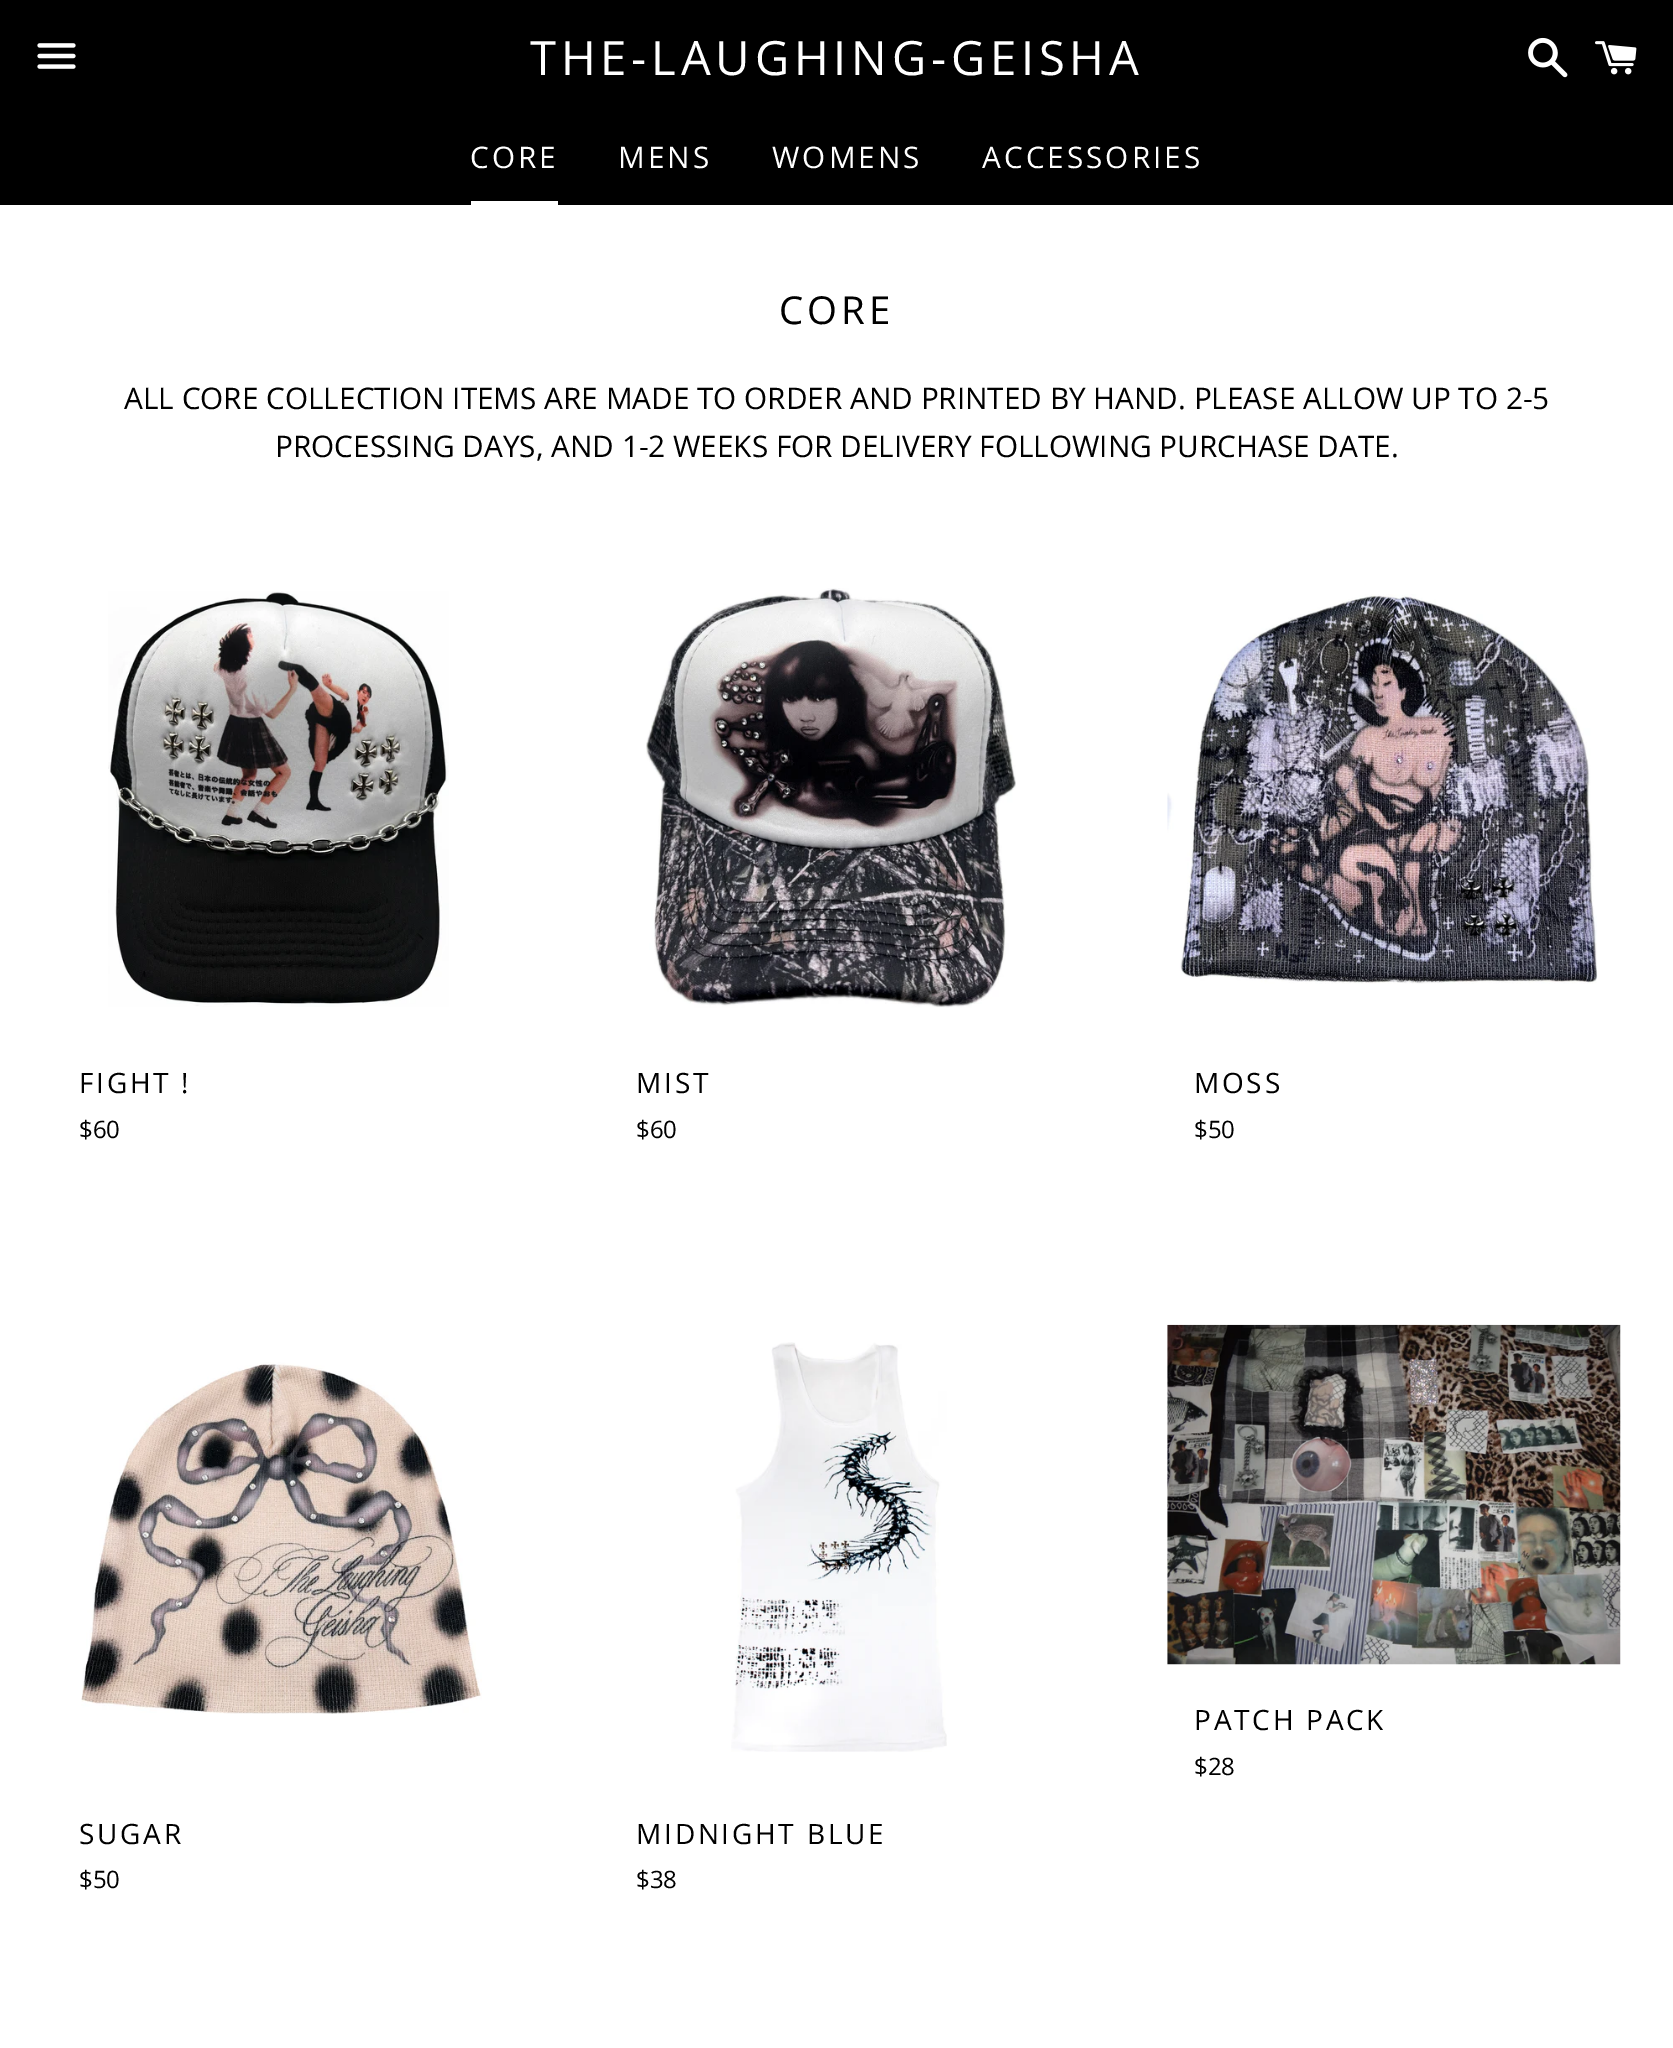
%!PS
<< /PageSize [1673 2048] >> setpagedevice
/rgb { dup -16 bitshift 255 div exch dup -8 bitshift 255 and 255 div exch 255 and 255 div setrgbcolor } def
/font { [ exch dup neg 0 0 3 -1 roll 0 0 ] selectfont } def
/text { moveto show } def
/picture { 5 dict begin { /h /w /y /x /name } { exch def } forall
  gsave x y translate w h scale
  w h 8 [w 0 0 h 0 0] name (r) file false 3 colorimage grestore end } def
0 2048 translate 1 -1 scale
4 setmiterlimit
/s1 { /OpenSans-Regular 29.75 font 16#000000 rgb } def
/s2 { /OpenSans-Regular 24 font 16#000000 rgb } def
16#FFFFFF rgb
0 0 1673 2048 rectfill
16#000000 rgb
0 0 1673 205 rectfill
(pic1.raw) 37 43 39 26 picture
/OpenSans-Regular 47.25 font
16#FFFFFF rgb
530 75 moveto 4.75 0 (THE-LAUGHING-GEISHA) ashow
(pic2.raw) 1528 37 40 41 picture
(pic3.raw) 1595 41 42 34 picture
/OpenSans-Regular 29.75 font
470 168 moveto 3 0 (CORE) ashow
471 201 87 4 rectfill
618 168 moveto 3 0 (MENS) ashow
772 168 moveto 3 0 (WOMENS) ashow
982 168 moveto 3 0 (ACCESSORIES) ashow
/OpenSans-Regular 38.5 font
16#000000 rgb
779 324 moveto 4 0 (CORE) ashow
s1
(ALL CORE COLLECTION ITEMS ARE MADE TO ORDER AND PRINTED BY HAND. PLEASE ALLOW UP TO 2-5) 124 409 text
(PROCESSING DAYS, AND 1-2 WEEKS FOR DELIVERY FOLLOWING PURCHASE DATE.) 275 457 text
(pic4.raw) 108 591 341 416 picture
/OpenSans-Regular 28 font
79 1093 moveto 2.75 0 (FIGHT !) ashow
s2
($60) 79 1138 text
(pic5.raw) 646 588 370 420 picture
/OpenSans-Regular 28 font
636 1093 moveto 2.75 0 (MIST) ashow
s2
($60) 636 1138 text
(pic6.raw) 1167 594 431 390 picture
/OpenSans-Regular 28 font
1194 1093 moveto 2.75 0 (MOSS) ashow
s2
($50) 1194 1138 text
(pic7.raw) 1167 1324 454 341 picture
/OpenSans-Regular 28 font
1194 1730 moveto 2.75 0 (PATCH PACK) ashow
s2
($28) 1194 1775 text
(pic8.raw) 81 1362 401 352 picture
/OpenSans-Regular 28 font
79 1844 moveto 2.75 0 (SUGAR) ashow
s2
($50) 79 1888 text
(pic9.raw) 731 1342 216 410 picture
/OpenSans-Regular 28 font
636 1844 moveto 2.75 0 (MIDNIGHT BLUE) ashow
s2
($38) 636 1888 text
showpage
